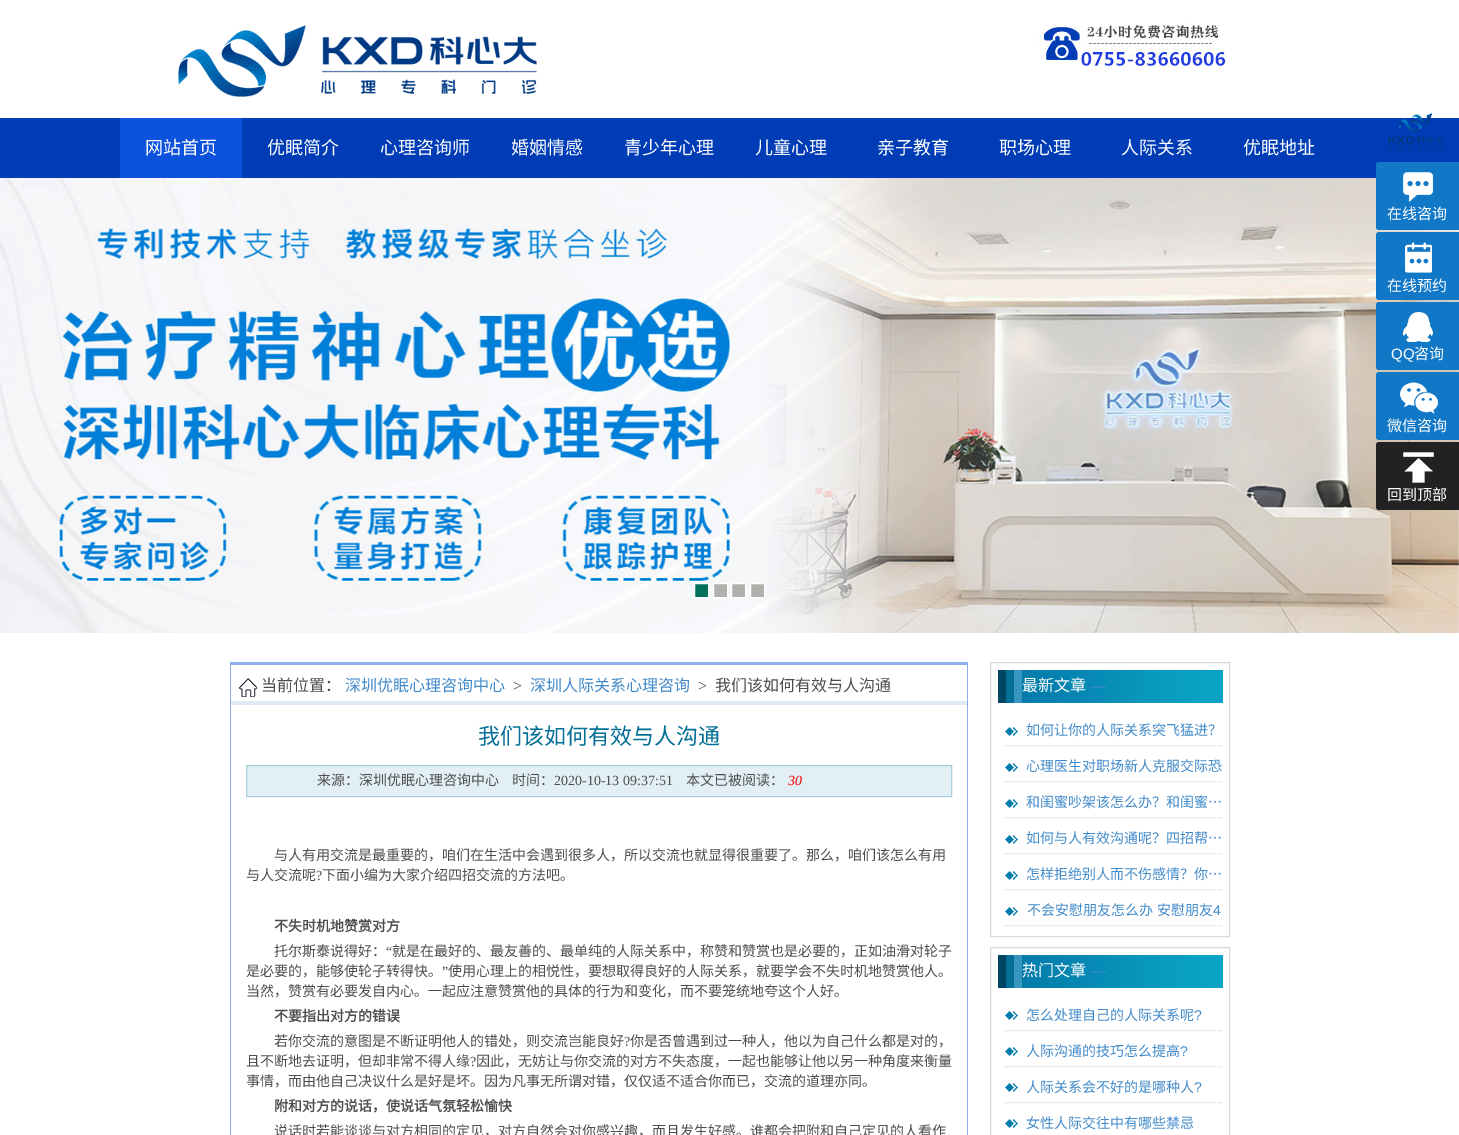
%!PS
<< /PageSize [1459 1135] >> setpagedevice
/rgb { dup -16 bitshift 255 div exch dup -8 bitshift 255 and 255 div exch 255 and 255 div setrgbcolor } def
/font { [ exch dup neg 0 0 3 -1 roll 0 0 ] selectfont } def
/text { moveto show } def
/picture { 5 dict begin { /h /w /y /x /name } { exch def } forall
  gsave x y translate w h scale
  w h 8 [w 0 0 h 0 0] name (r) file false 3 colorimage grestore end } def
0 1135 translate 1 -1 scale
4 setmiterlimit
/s1 { /NotoSansCJKSC-Regular 18 font 16#FFFFFF rgb } def
/s2 { /NotoSansCJKSC-Regular 15 font 16#FFFFFF rgb } def
/s3 { /LiberationSans-Regular 15 font 16#FFFFFF rgb } def
/s4 { /NotoSansCJKSC-Regular 16 font 16#4D4D4D rgb } def
/s5 { /NotoSansCJKSC-Regular 16 font 16#428BCA rgb } def
/s6 { /LiberationSerif-Regular 16 font 16#4D4D4D rgb } def
/s7 { /NotoSansCJKSC-Regular 22 font 16#036F96 rgb } def
/s8 { /NotoSansCJKSC-Regular 14 font 16#4D4D4D rgb } def
/s9 { /LiberationSerif-Regular 14 font 16#4D4D4D rgb } def
/s10 { /LiberationSerif-Italic 14 font 16#FF0000 rgb } def
/s11 { /NotoSansCJKSC-Bold 14 font 16#4D4D4D rgb } def
/s12 { /NotoSansCJKSC-Regular 16 font 16#FFFFFF rgb } def
/s13 { /LiberationSerif-Regular 16 font 16#428BCA rgb } def
/s14 { /NotoSansCJKSC-Regular 14 font 16#428BCA rgb } def
/s15 { /LiberationSans-Regular 14 font 16#428BCA rgb } def
16#FFFFFF rgb
0 0 1459 1135 rectfill
(pic1.raw) 178 25 359 72 picture
(pic2.raw) 1038 22 191 51 picture
16#003CB5 rgb
0 118 1459 60 rectfill
16#0D52DD rgb
120 118 122 60 rectfill
s1
(网站首页) 145 154 text
(优眠简介) 267 154 text
(心理咨询师) 380 154 text
(婚姻情感) 511 154 text
(青少年心理) 624 154 text
(儿童心理) 755 154 text
(亲子教育) 877 154 text
(职场心理) 999 154 text
(人际关系) 1121 154 text
(优眠地址) 1243 154 text
(pic3.raw) 1388 113 56 38 picture
(pic4.raw) 0 178 1459 455 picture
16#02725A rgb
694.5 583.5 moveto 708.5 583.5 lineto 708.5 597.5 lineto 694.5 597.5 lineto closepath gsave fill grestore
16#FFFFFF rgb
stroke
16#B1B0AD rgb
713.5 583.5 moveto 727.5 583.5 lineto 727.5 597.5 lineto 713.5 597.5 lineto closepath gsave fill grestore
16#FFFFFF rgb
stroke
16#B1B0AD rgb
731.5 583.5 moveto 745.5 583.5 lineto 745.5 597.5 lineto 731.5 597.5 lineto closepath gsave fill grestore
16#FFFFFF rgb
stroke
16#B1B0AD rgb
750.5 583.5 moveto 764.5 583.5 lineto 764.5 597.5 lineto 750.5 597.5 lineto closepath gsave fill grestore
16#FFFFFF rgb
stroke
16#1178C7 rgb
1379 162 moveto 1459 162 lineto 1459 230 lineto 1379 230 lineto 1377.5 230 1376 228.5 1376 227 curveto 1376 165 lineto 1376 163.5 1377.5 162 1379 162 curveto closepath fill
(pic5.raw) 1403 172 30 30 picture
s2
(在线咨询) 1387 219 text
16#1178C7 rgb
1379 232 moveto 1459 232 lineto 1459 300 lineto 1379 300 lineto 1377.5 300 1376 298.5 1376 297 curveto 1376 235 lineto 1376 233.5 1377.5 232 1379 232 curveto closepath fill
(pic6.raw) 1405 242 27 31 picture
s2
(在线预约) 1387 291 text
16#1178C7 rgb
1379 302 moveto 1459 302 lineto 1459 370 lineto 1379 370 lineto 1377.5 370 1376 368.5 1376 367 curveto 1376 305 lineto 1376 303.5 1377.5 302 1379 302 curveto closepath fill
(pic7.raw) 1403 312 30 30 picture
s3
(QQ) 1391 359 text
s2
(咨询) 1414 359 text
16#1178C7 rgb
1379 372 moveto 1459 372 lineto 1459 440 lineto 1379 440 lineto 1377.5 440 1376 438.5 1376 437 curveto 1376 375 lineto 1376 373.5 1377.5 372 1379 372 curveto closepath fill
(pic8.raw) 1400 382 38 32 picture
s2
(微信咨询) 1387 431 text
16#222222 rgb
1379 442 moveto 1459 442 lineto 1459 510 lineto 1379 510 lineto 1377.5 510 1376 508.5 1376 507 curveto 1376 445 lineto 1376 443.5 1377.5 442 1379 442 curveto closepath fill
(pic9.raw) 1403 452 31 31 picture
s2
(回到顶部) 1387 500 text
16#8BAEEC rgb
230 662 738 3 rectfill
967 662 1 473 rectfill
230 662 1 473 rectfill
(pic10.raw) 239 678 18 19 picture
s4
(当前位置：) 261 691 text
s5
(深圳优眠心理咨询中心) 345 691 text
s6
(>) 513 691 text
s5
(深圳人际关系心理咨询) 530 691 text
s6
(>) 698 691 text
s4
(我们该如何有效与人沟通) 715 691 text
16#E2E9F6 rgb
231 701 736 4 rectfill
s7
(我们该如何有效与人沟通) 478 744 text
16#E2EFF5 rgb
246.5 765.5 moveto 951.5 765.5 lineto 951.5 796.5 lineto 246.5 796.5 lineto closepath gsave fill grestore
16#AACEDB rgb
stroke
s8
(来源：深圳优眠心理咨询中心) 317 785 text
(时间：) 512 785 text
s9
(2020-10-13 09:37:51) 554 785 text
s8
(本文已被阅读：) 686 785 text
s10
(30) 788 785 text
s8
(与人有用交流是最重要的，咱们在生活中会遇到很多人，所以交流也就显得很重要了。那么，咱们该怎么有用) 274 860 text
(与人交流呢) 246 880 text
s9
(?) 316 880 text
s8
(下面小编为大家介绍四招交流的方法吧。) 322 880 text
s11
(不失时机地赞赏对方) 274 931 text
s8
(托尔斯泰说得好：) 274 956 text
s9
(“) 386 956 text
s8
(就是在最好的、最友善的、最单纯的人际关系中，称赞和赞赏也是必要的，正如油滑对轮子) 392 956 text
(是必要的，能够使轮子转得快。) 246 976 text
s9
(”) 442 976 text
s8
(使用心理上的相悦性，要想取得良好的人际关系，就要学会不失时机地赞赏他人。) 448 976 text
(当然，赞赏有必要发自内心。一起应注意赞赏他的具体的行为和变化，而不要笼统地夸这个人好。) 246 996 text
s11
(不要指出对方的错误) 274 1021 text
s8
(若你交流的意图是不断证明他人的错处，则交流岂能良好) 274 1046 text
s9
(?) 624 1046 text
s8
(你是否曾遇到过一种人，他以为自己什么都是对的，) 630 1046 text
(且不断地去证明，但却非常不得人缘) 246 1066 text
s9
(?) 470 1066 text
s8
(因此，无妨让与你交流的对方不失态度，一起也能够让他以另一种角度来衡量) 476 1066 text
(事情，而由他自己决议什么是好是坏。因为凡事无所谓对错，仅仅适不适合你而已，交流的道理亦同。) 246 1086 text
s11
(附和对方的说话，使说话气氛轻松愉快) 274 1111 text
s8
(说话时若能谈谈与对方相同的定见，对方自然会对你感兴趣，而且发生好感。谁都会把附和自己定见的人看作) 274 1136 text
16#D9D9D9 rgb
990.5 662.5 239 274 rectstroke
(pic11.raw) 998 670 225 33 picture
s12
(最新文章) 1022 691 text
s13
(—) 1090 691 text
16#D9D9D9 rgb
[1 1] 0 setdash
1005 745.5 moveto 1223 745.5 lineto stroke
(pic12.raw) 1005 727 13 9 picture
s14
(如何让你的人际关系突飞猛进？) 1026 735 text
16#D9D9D9 rgb
1005 781.5 moveto 1223 781.5 lineto stroke
(pic12.raw) 1005 763 13 9 picture
s14
(心理医生对职场新人克服交际恐) 1026 771 text
16#D9D9D9 rgb
1005 817.5 moveto 1223 817.5 lineto stroke
(pic12.raw) 1005 799 13 9 picture
s14
(和闺蜜吵架该怎么办？和闺蜜…) 1026 807 text
16#D9D9D9 rgb
1005 853.5 moveto 1223 853.5 lineto stroke
(pic12.raw) 1005 835 13 9 picture
s14
(如何与人有效沟通呢？四招帮…) 1026 843 text
16#D9D9D9 rgb
1005 889.5 moveto 1223 889.5 lineto stroke
(pic12.raw) 1005 871 13 9 picture
s14
(怎样拒绝别人而不伤感情？你…) 1026 879 text
16#D9D9D9 rgb
1005 925.5 moveto 1223 925.5 lineto stroke
(pic12.raw) 1005 907 13 9 picture
16#428BCA rgb
1027 915 moveto 1 0 32 (不会安慰朋友怎么办 安慰朋友) widthshow
s15
(4) 1213 915 text
16#D9D9D9 rgb
[] 0 setdash
990.5 947.5 239 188 rectstroke
(pic11.raw) 998 955 225 33 picture
s12
(热门文章) 1022 976 text
s13
(—) 1090 976 text
16#D9D9D9 rgb
[1 1] 0 setdash
1005 1030.5 moveto 1223 1030.5 lineto stroke
(pic12.raw) 1005 1011 13 9 picture
s14
(怎么处理自己的人际关系呢) 1026 1020 text
s15
(?) 1194 1020 text
16#D9D9D9 rgb
1005 1066.5 moveto 1223 1066.5 lineto stroke
(pic12.raw) 1005 1047 13 9 picture
s14
(人际沟通的技巧怎么提高) 1026 1056 text
s15
(?) 1180 1056 text
16#D9D9D9 rgb
1005 1102.5 moveto 1223 1102.5 lineto stroke
(pic12.raw) 1005 1083 13 9 picture
s14
(人际关系会不好的是哪种人) 1026 1092 text
s15
(?) 1194 1092 text
(pic12.raw) 1005 1119 13 9 picture
s14
(女性人际交往中有哪些禁忌) 1026 1128 text
showpage
